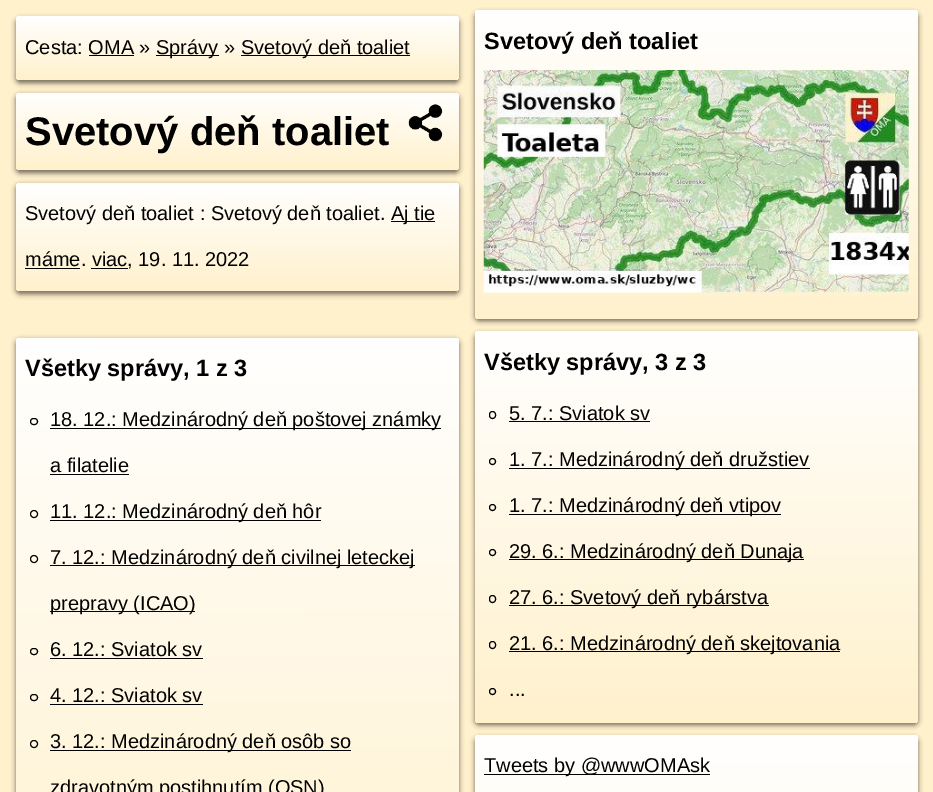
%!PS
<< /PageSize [933 792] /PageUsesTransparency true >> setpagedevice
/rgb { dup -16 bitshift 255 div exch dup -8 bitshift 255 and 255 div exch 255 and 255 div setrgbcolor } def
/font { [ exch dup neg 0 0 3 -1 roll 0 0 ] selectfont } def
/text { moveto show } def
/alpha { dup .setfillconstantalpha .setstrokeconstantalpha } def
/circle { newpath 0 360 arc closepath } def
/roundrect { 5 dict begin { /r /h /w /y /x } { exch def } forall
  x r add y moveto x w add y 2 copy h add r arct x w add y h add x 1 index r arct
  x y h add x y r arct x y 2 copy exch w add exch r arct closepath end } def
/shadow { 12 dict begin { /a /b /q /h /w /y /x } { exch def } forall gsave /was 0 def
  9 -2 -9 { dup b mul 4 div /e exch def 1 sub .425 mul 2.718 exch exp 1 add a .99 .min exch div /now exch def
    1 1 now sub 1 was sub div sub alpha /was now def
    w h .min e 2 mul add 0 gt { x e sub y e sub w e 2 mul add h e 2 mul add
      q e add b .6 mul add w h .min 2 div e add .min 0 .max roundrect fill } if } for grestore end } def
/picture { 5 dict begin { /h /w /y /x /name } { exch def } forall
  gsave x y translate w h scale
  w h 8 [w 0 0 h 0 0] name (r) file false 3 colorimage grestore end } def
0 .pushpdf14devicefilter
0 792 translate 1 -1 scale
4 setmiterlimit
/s1 { /LiberationSans-Regular 20 font 16#000000 rgb } def
/s2 { /LiberationSans-Bold 23.5 font 16#000000 rgb } def
/s3 { /LiberationSans-Bold 40 font 16#000000 rgb } def
16#FFF1CC rgb
0 0 933 792 rectfill
16#000000 rgb
16 19 443 64 4 2.5 0.55 shadow
gsave 16 16 443 64 4 roundrect clip newpath
<< /ShadingType 2 /ColorSpace /DeviceRGB /Coords [238 16 238 80] /Extend [true true] /Function << /FunctionType 2 /Domain [0 1] /C0 [1 1 1] /C1 [1 0.945 0.8] /N 1 >> >> shfill grestore
s1
(Cesta: OMA ») 25 54 text
156 55 63 1 rectfill
(Správy ») 156 54 text
241 55 169 1 rectfill
(Svetový deň toaliet) 241 54 text
89 55 45 1 rectfill
475 13 443 308 4 2.5 0.55 shadow
gsave 475 10 443 309 4 roundrect clip newpath
<< /ShadingType 2 /ColorSpace /DeviceRGB /Coords [696 10 696 319] /Extend [true true] /Function << /FunctionType 2 /Domain [0 1] /C0 [1 1 1] /C1 [1 0.945 0.8] /N 1 >> >> shfill grestore
s2
(Svetový deň toaliet) 484 49 text
(pic1.raw) 483 70 426 223 picture
16 95 443 78 4 2.5 0.55 shadow
gsave 16 93 443 77 4 roundrect clip newpath
<< /ShadingType 2 /ColorSpace /DeviceRGB /Coords [238 92 238 170] /Extend [true true] /Function << /FunctionType 2 /Domain [0 1] /C0 [1 1 1] /C1 [1 0.945 0.8] /N 1 >> >> shfill grestore
s3
(Svetový deň toaliet) 25 145 text
(pic2.raw) 408 104 35 38 picture
16 185 443 109 4 2.5 0.55 shadow
gsave 16 183 443 108 4 roundrect clip newpath
<< /ShadingType 2 /ColorSpace /DeviceRGB /Coords [238 182 238 291] /Extend [true true] /Function << /FunctionType 2 /Domain [0 1] /C0 [1 1 1] /C1 [1 0.945 0.8] /N 1 >> >> shfill grestore
s1
(Svetový deň toaliet : Svetový deň toaliet.) 25 220 text
391 221 44 1 rectfill
(Aj tie) 391 220 text
25 268 55 1 rectfill
(máme. viac, 19. 11. 2022) 25 266 text
91 268 37 1 rectfill
16 340 443 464 4 2.5 0.55 shadow
gsave 16 338 443 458 4 roundrect clip newpath
<< /ShadingType 2 /ColorSpace /DeviceRGB /Coords [237 338 238 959] /Extend [true true] /Function << /FunctionType 2 /Domain [0 1] /C0 [1 1 1] /C1 [1 0.945 0.8] /N 1 >> >> shfill grestore
s2
(Všetky správy, 1 z 3) 25 376 text
30.5 418.5 7 6 3 roundrect stroke
50 428 391 1 rectfill
s1
(18. 12.: Medzinárodný deň poštovej známky) 50 426 text
(a filatelie) 50 472 text
50 474 79 1 rectfill
34 514 3.5 circle stroke
50 520 271 1 rectfill
(11. 12.: Medzinárodný deň hôr) 50 518 text
34 559 3.5 circle stroke
50 565 365 1 rectfill
(7. 12.: Medzinárodný deň civilnej leteckej) 50 564 text
50 611 145 1 rectfill
(prepravy \(ICAO\)) 50 610 text
30.5 648.5 7 6 3 roundrect stroke
(6. 12.: Sviatok sv) 50 656 text
50 658 153 1 rectfill
30.5 694.5 7 6 3 roundrect stroke
(4. 12.: Sviatok sv) 50 702 text
50 704 153 1 rectfill
34 744 3.5 circle stroke
50 750 301 1 rectfill
(3. 12.: Medzinárodný deň osôb so) 50 748 text
(zdravotným postihnutím \(OSN\)) 50 794 text
475 334 443 391 4 2.5 0.55 shadow
gsave 475 331 443 392 4 roundrect clip newpath
<< /ShadingType 2 /ColorSpace /DeviceRGB /Coords [696 331 696 723] /Extend [true true] /Function << /FunctionType 2 /Domain [0 1] /C0 [1 1 1] /C1 [1 0.945 0.8] /N 1 >> >> shfill grestore
s2
(Všetky správy, 3 z 3) 484 370 text
489.5 411.5 6 7 3 roundrect stroke
s1
(5. 7.: Sviatok sv) 509 420 text
509 421 141 1 rectfill
492.5 461.5 3 circle stroke
509 468 301 1 rectfill
(1. 7.: Medzinárodný deň družstiev) 509 466 text
492.5 507.5 3 circle stroke
509 514 272 1 rectfill
(1. 7.: Medzinárodný deň vtipov) 509 512 text
492.5 552.5 3 circle stroke
509 559 295 1 rectfill
(29. 6.: Medzinárodný deň Dunaja) 509 558 text
489.5 595.5 6 7 3 roundrect stroke
509 605 260 1 rectfill
(27. 6.: Svetový deň rybárstva) 509 604 text
489.5 641.5 6 7 3 roundrect stroke
509 651 331 1 rectfill
(21. 6.: Medzinárodný deň skejtovania) 509 650 text
492.5 691.5 3 circle stroke
(...) 509 696 text
475 738 443 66 4 2.5 0.55 shadow
gsave 475 735 443 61 4 roundrect clip newpath
<< /ShadingType 2 /ColorSpace /DeviceRGB /Coords [696 735 696 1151] /Extend [true true] /Function << /FunctionType 2 /Domain [0 1] /C0 [1 1 1] /C1 [1 0.945 0.8] /N 1 >> >> shfill grestore
484 774 226 1 rectfill
(Tweets by @wwwOMAsk) 484 772 text
.poppdf14devicefilter showpage
